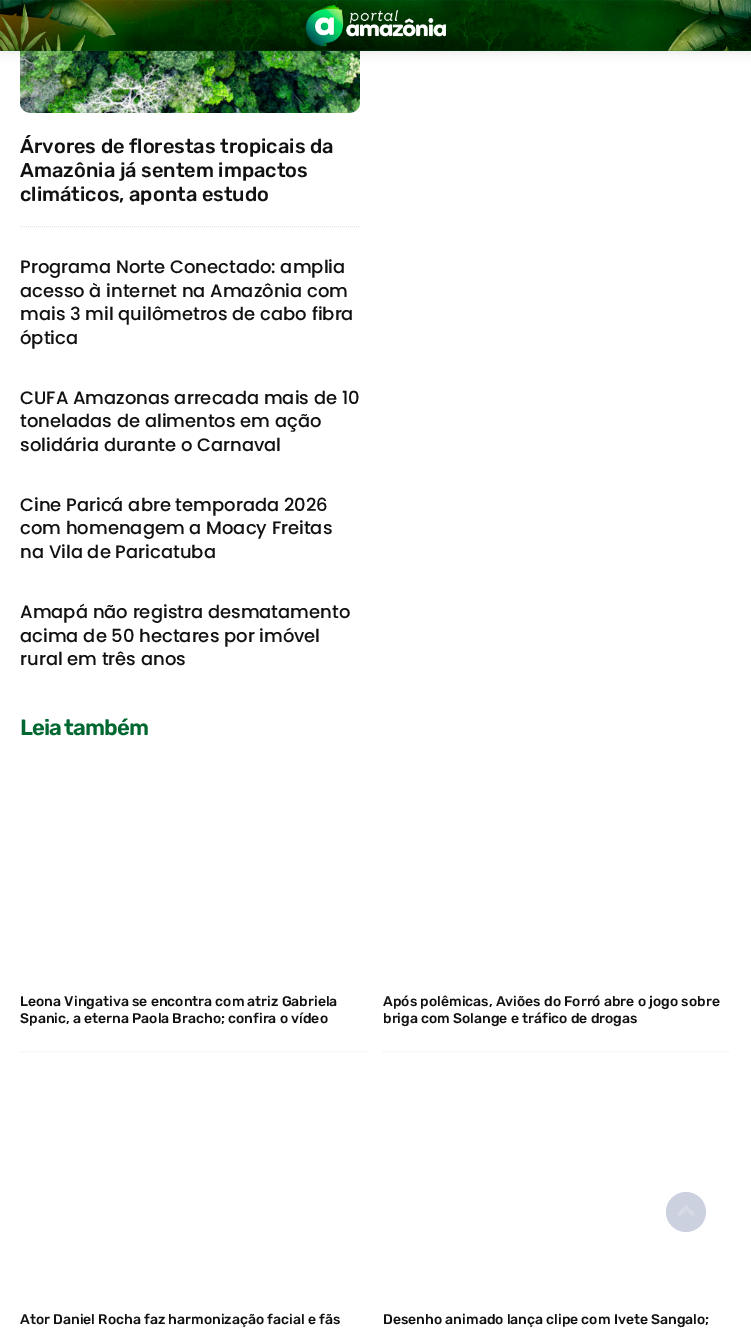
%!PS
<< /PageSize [751 1332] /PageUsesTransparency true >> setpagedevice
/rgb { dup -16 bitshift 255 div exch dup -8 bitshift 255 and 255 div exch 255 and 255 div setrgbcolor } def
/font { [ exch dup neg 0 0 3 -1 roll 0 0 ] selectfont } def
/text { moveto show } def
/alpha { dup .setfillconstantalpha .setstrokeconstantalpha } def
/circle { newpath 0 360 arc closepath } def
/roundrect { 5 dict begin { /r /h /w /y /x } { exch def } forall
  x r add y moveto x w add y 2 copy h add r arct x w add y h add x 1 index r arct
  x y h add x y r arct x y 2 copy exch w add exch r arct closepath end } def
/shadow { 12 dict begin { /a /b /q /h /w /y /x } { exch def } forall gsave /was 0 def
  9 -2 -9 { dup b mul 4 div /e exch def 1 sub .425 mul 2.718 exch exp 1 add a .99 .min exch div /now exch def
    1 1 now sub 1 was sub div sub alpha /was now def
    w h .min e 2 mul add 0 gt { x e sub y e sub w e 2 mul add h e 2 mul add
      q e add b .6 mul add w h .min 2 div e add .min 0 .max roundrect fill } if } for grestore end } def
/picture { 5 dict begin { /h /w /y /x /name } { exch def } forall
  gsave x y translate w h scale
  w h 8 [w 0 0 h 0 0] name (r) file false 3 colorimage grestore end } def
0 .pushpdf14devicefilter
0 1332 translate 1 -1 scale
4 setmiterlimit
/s1 { /Rubik-Medium 20 font 16#111111 rgb } def
/s2 { /Poppins-Medium 18 font 16#111111 rgb } def
/s3 { /Rubik-Medium 14 font 16#111111 rgb } def
16#FFFFFF rgb
0 0 751 1332 rectfill
(pic3.raw) 20 50 340 63 picture
(pic1.raw) 0 0 751 51 picture
(pic2.raw) 306 5 140 41 picture
gsave
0 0 moveto 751 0 lineto 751 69 lineto 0 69 lineto closepath 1 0 moveto 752 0 lineto 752 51 lineto 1 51 lineto closepath eoclip newpath
16#000000 rgb
1 2 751 51 0 5 0.09 shadow
grestore
16#E6E6E6 rgb
[1 1] 0 setdash
20 226.5 moveto 360 226.5 lineto stroke
s1
(Árvores de florestas tropicais da) 20 153 text
(Amazônia já sentem impactos) 20 177 text
(climáticos, aponta estudo) 20 201 text
s2
(Programa Norte Conectado: amplia) 20 273 text
(acesso à internet na Amazônia com) 20 297 text
(mais 3 mil quilômetros de cabo fibra) 20 320 text
(óptica) 20 344 text
(CUFA Amazonas arrecada mais de 10) 20 404 text
(toneladas de alimentos em ação) 20 427 text
(solidária durante o Carnaval) 20 451 text
(Cine Paricá abre temporada 2026) 20 511 text
(com homenagem a Moacy Freitas) 20 534 text
(na Vila de Paricatuba) 20 558 text
(Amapá não registra desmatamento) 20 618 text
(acima de 50 hectares por imóvel) 20 642 text
(rural em três anos) 20 665 text
/Rubik-SemiBold 22 font
16#006731 rgb
20 735 moveto -1 0 (Leia também) ashow
s3
(Leona Vingativa se encontra com atriz Gabriela) 20 1006 text
(Spanic, a eterna Paola Bracho; confira o vídeo) 20 1023 text
16#F1F1F1 rgb
20 1051.5 moveto 368 1051.5 lineto stroke
s3
(Após polêmicas, Aviões do Forró abre o jogo sobre) 383 1006 text
(briga com Solange e tráfico de drogas) 383 1023 text
16#F1F1F1 rgb
383 1051.5 moveto 731 1051.5 lineto stroke
s3
(Ator Daniel Rocha faz harmonização facial e fãs) 20 1324 text
(Desenho animado lança clipe com Ivete Sangalo;) 383 1324 text
16#CCD1DF rgb
686 1212 20 circle fill
(pic4.raw) 677 1205 18 11 picture
.poppdf14devicefilter showpage
